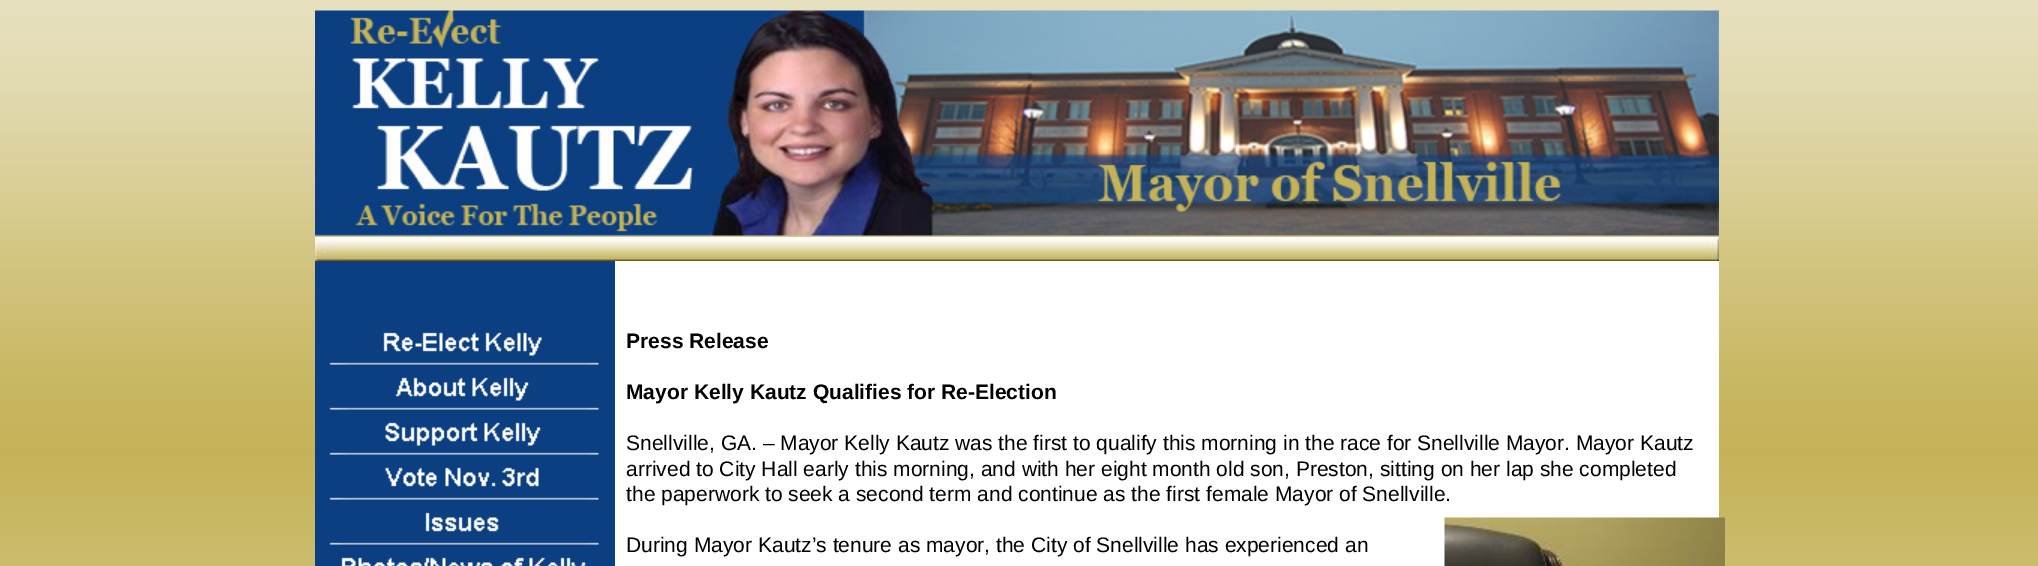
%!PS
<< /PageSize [2038 566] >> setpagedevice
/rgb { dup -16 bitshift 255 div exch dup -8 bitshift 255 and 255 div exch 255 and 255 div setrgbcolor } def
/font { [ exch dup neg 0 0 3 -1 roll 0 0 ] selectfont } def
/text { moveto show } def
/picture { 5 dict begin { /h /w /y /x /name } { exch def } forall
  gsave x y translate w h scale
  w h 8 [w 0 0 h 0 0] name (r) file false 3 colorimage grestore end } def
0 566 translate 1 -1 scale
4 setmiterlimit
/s1 { /LiberationSans-Bold 21 font 16#000000 rgb } def
/s2 { /LiberationSans-Regular 21 font 16#000000 rgb } def
16#FFFFFF rgb
0 0 2038 566 rectfill
(pic1.raw) 0 0 2038 566 picture
(pic2.raw) 315 10 1404 226 picture
(pic3.raw) 315 237 1404 24 picture
16#0C3F81 rgb
315 261 300 305 rectfill
16#FFFFFF rgb
615 261 1104 305 rectfill
(pic4.raw) 329 332 270 33 picture
(pic5.raw) 329 377 270 33 picture
(pic6.raw) 329 422 270 33 picture
(pic7.raw) 329 467 270 33 picture
(pic8.raw) 329 512 270 33 picture
(pic9.raw) 341 557 245 9 picture
s1
(Press Release) 626 348 text
(Mayor Kelly Kautz Qualifies for Re-Election) 626 399 text
s2
(Snellville, GA. – Mayor Kelly Kautz was the first to qualify this morning in the race for Snellville Mayor. Mayor Kautz) 626 450 text
(arrived to City Hall early this morning, and with her eight month old son, Preston, sitting on her lap she completed) 626 476 text
(the paperwork to seek a second term and continue as the first female Mayor of Snellville.) 626 501 text
(During Mayor Kautz’s tenure as mayor, the City of Snellville has experienced an) 626 552 text
(pic10.raw) 1444 517 281 49 picture
showpage
